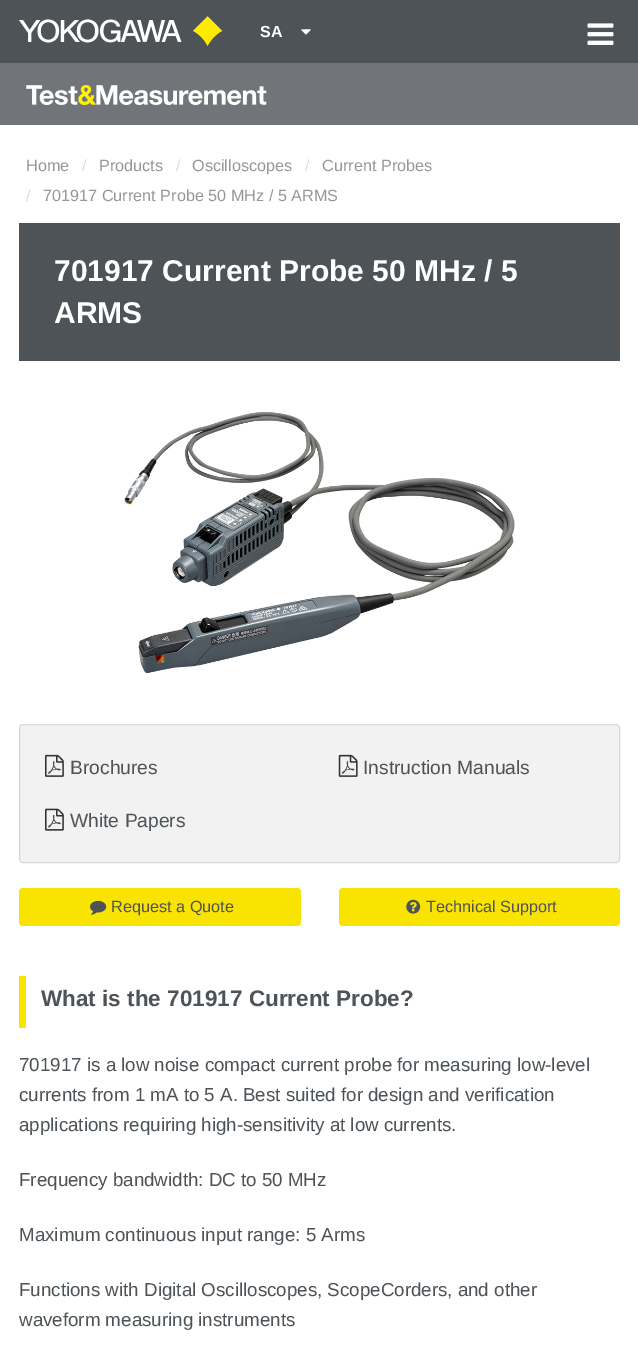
%!PS
<< /PageSize [638 1371] >> setpagedevice
/rgb { dup -16 bitshift 255 div exch dup -8 bitshift 255 and 255 div exch 255 and 255 div setrgbcolor } def
/font { [ exch dup neg 0 0 3 -1 roll 0 0 ] selectfont } def
/text { moveto show } def
/roundrect { 5 dict begin { /r /h /w /y /x } { exch def } forall
  x r add y moveto x w add y 2 copy h add r arct x w add y h add x 1 index r arct
  x y h add x y r arct x y 2 copy exch w add exch r arct closepath end } def
/picture { 5 dict begin { /h /w /y /x /name } { exch def } forall
  gsave x y translate w h scale
  w h 8 [w 0 0 h 0 0] name (r) file false 3 colorimage grestore end } def
0 1371 translate 1 -1 scale
4 setmiterlimit
/s1 { /LiberationSans-Bold 16 font 16#FFFFFF rgb } def
/s2 { /LiberationSans-Regular 16.25 font 16#94989A rgb } def
/s3 { /LiberationSans-Regular 16.25 font 16#DBDDDD rgb } def
/s4 { /LiberationSans-Bold 30 font 16#FFFFFF rgb } def
/s5 { /LiberationSans-Regular 19.25 font 16#4D5357 rgb } def
/s6 { /LiberationSans-Regular 16.25 font 16#4D5357 rgb } def
/s7 { /LiberationSans-Bold 22.5 font 16#4D5357 rgb } def
/s8 { /LiberationSans-Regular 18.75 font 16#4D5357 rgb } def
16#FFFFFF rgb
0 0 638 1371 rectfill
16#4D5357 rgb
0 0 638 63 rectfill
(pic1.raw) 19 16 204 30 picture
s1
(SA) 260 37 text
(pic2.raw) 301 29 10 6 picture
(pic3.raw) 587 23 27 22 picture
16#717579 rgb
0 63 638 62 rectfill
(pic4.raw) 26 85 241 20 picture
s2
(Home) 26 171 text
s3
(/) 82 171 text
s2
(Products) 99 171 text
s3
(/) 176 171 text
s2
(Oscilloscopes) 192 171 text
s3
(/) 305 171 text
s2
(Current Probes) 322 171 text
s3
(/) 26 201 text
s2
(701917 Current Probe 50 MHz / 5 ARMS) 43 201 text
16#4D5357 rgb
19 223 601 138 rectfill
s4
(701917 Current Probe 50 MHz / 5) 54 281 text
(ARMS) 54 323 text
(pic5.raw) 124 412 391 261 picture
16#F2F2F2 rgb
19.5 724.5 600 138 3.5 roundrect gsave fill grestore
16#D8D8D8 rgb
stroke
(pic6.raw) 45 754 19 23 picture
s5
(Brochures) 70 774 text
(pic7.raw) 338 754 20 23 picture
(Instruction Manuals) 363 774 text
(pic8.raw) 45 808 19 23 picture
(White Papers) 70 827 text
16#F9E300 rgb
19 888 282 38 4 roundrect fill
(pic9.raw) 90 900 17 15 picture
s6
(Request a Quote) 111 912 text
16#F9E300 rgb
339 888 281 38 4 roundrect fill
(pic10.raw) 406 899 15 15 picture
s6
(Technical Support) 426 912 text
16#F9E300 rgb
19 976 7 52 rectfill
s7
(What is the 701917 Current Probe?) 41 1006 text
s8
(701917 is a low noise compact current probe for measuring low-level) 19 1071 text
(currents from 1 mA to 5 A. Best suited for design and verification) 19 1101 text
(applications requiring high-sensitivity at low currents.) 19 1131 text
(Frequency bandwidth: DC to 50 MHz) 19 1186 text
(Maximum continuous input range: 5 Arms) 19 1241 text
(Functions with Digital Oscilloscopes, ScopeCorders, and other) 19 1296 text
(waveform measuring instruments) 19 1326 text
showpage
